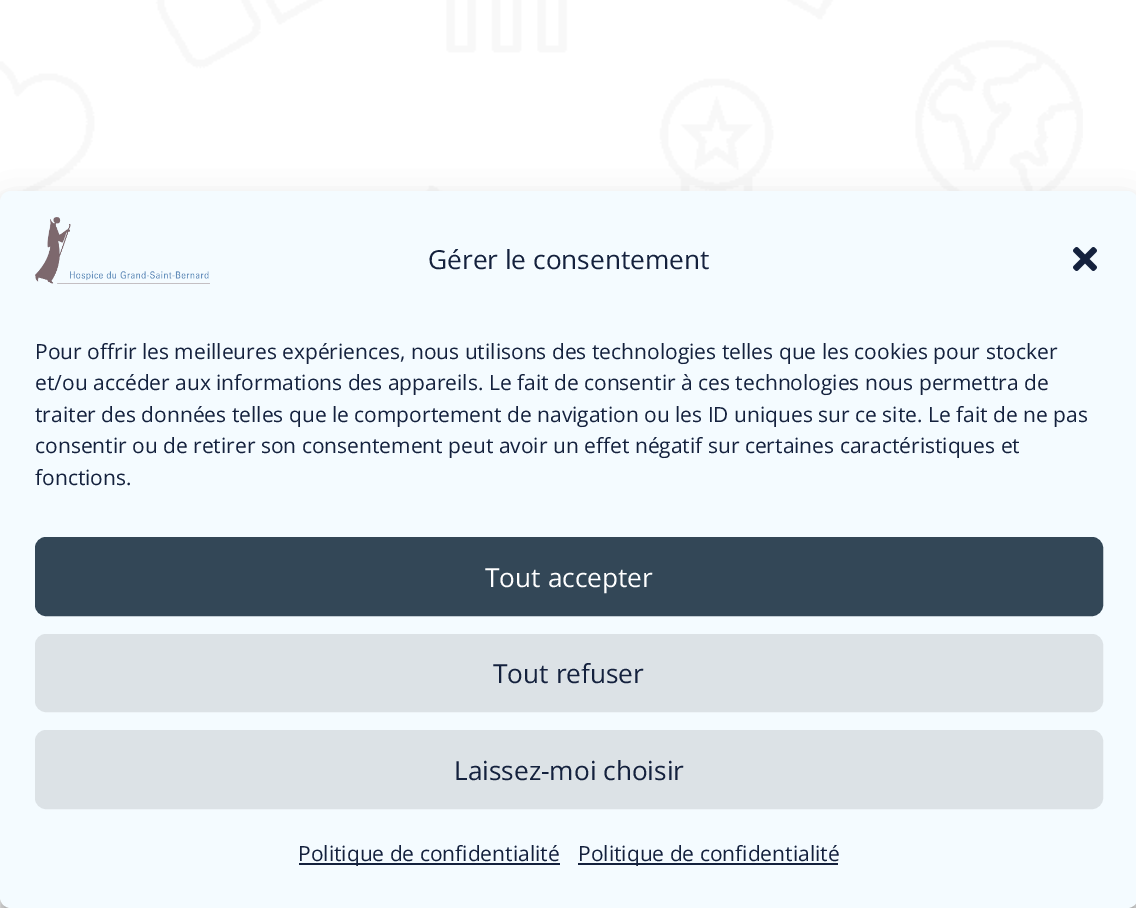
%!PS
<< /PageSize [1136 908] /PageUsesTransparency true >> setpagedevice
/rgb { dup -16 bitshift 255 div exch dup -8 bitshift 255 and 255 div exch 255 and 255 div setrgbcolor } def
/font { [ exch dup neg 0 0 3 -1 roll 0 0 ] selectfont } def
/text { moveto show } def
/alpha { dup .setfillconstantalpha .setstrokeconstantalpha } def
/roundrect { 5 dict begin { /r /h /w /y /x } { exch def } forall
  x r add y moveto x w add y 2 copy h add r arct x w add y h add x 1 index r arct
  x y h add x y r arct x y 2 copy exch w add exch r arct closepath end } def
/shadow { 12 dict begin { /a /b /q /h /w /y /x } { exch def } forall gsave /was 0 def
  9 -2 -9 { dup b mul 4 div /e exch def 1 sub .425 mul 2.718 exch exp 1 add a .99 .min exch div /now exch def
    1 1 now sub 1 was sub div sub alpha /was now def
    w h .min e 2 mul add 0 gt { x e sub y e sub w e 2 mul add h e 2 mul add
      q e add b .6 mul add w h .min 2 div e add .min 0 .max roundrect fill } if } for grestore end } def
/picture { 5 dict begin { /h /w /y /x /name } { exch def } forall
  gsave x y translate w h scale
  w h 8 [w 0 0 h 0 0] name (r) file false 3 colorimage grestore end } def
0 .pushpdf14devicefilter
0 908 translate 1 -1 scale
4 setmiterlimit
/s1 { /OpenSans-Regular 26.25 font 16#14213D rgb } def
/s2 { /OpenSans-Regular 21 font 16#14213D rgb } def
/s3 { /OpenSans-Regular 26.25 font 16#FFFFFF rgb } def
16#FFFFFF rgb
0 0 1136 908 rectfill
(pic1.raw) 0 0 1083 202 picture
16#000000 rgb
0 201 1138 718 11 5 0.23 shadow
0 208 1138 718 11 17.5 0.19 shadow
16#F4FBFF rgb
0 191 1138 717 11 roundrect fill
(pic2.raw) 35 217 175 67 picture
s1
(Gérer le consentement) 428 269 text
(pic3.raw) 1073 247 24 24 picture
s2
(Pour offrir les meilleures expériences, nous utilisons des technologies telles que les cookies pour stocker) 35 359 text
(et/ou accéder aux informations des appareils. Le fait de consentir à ces technologies nous permettra de) 35 390 text
(traiter des données telles que le comportement de navigation ou les ID uniques sur ce site. Le fait de ne pas) 35 422 text
(consentir ou de retirer son consentement peut avoir un effet négatif sur certaines caractéristiques et) 35 453 text
(fonctions.) 35 485 text
16#334757 rgb
36 538 1066 77 10 roundrect gsave fill grestore
2 setlinewidth
stroke
s3
(Tout accepter) 485 587 text
16#DCE2E6 rgb
36 635 1066 76 10 roundrect gsave fill grestore
stroke
s1
(Tout refuser) 493 683 text
16#DCE2E6 rgb
36 731 1066 77 10 roundrect gsave fill grestore
stroke
s1
(Laissez-moi choisir) 454 780 text
299 863 261 2 rectfill
s2
(Politique de confidentialité) 298 861 text
578 863 260 2 rectfill
(Politique de confidentialité) 578 861 text
.poppdf14devicefilter showpage
